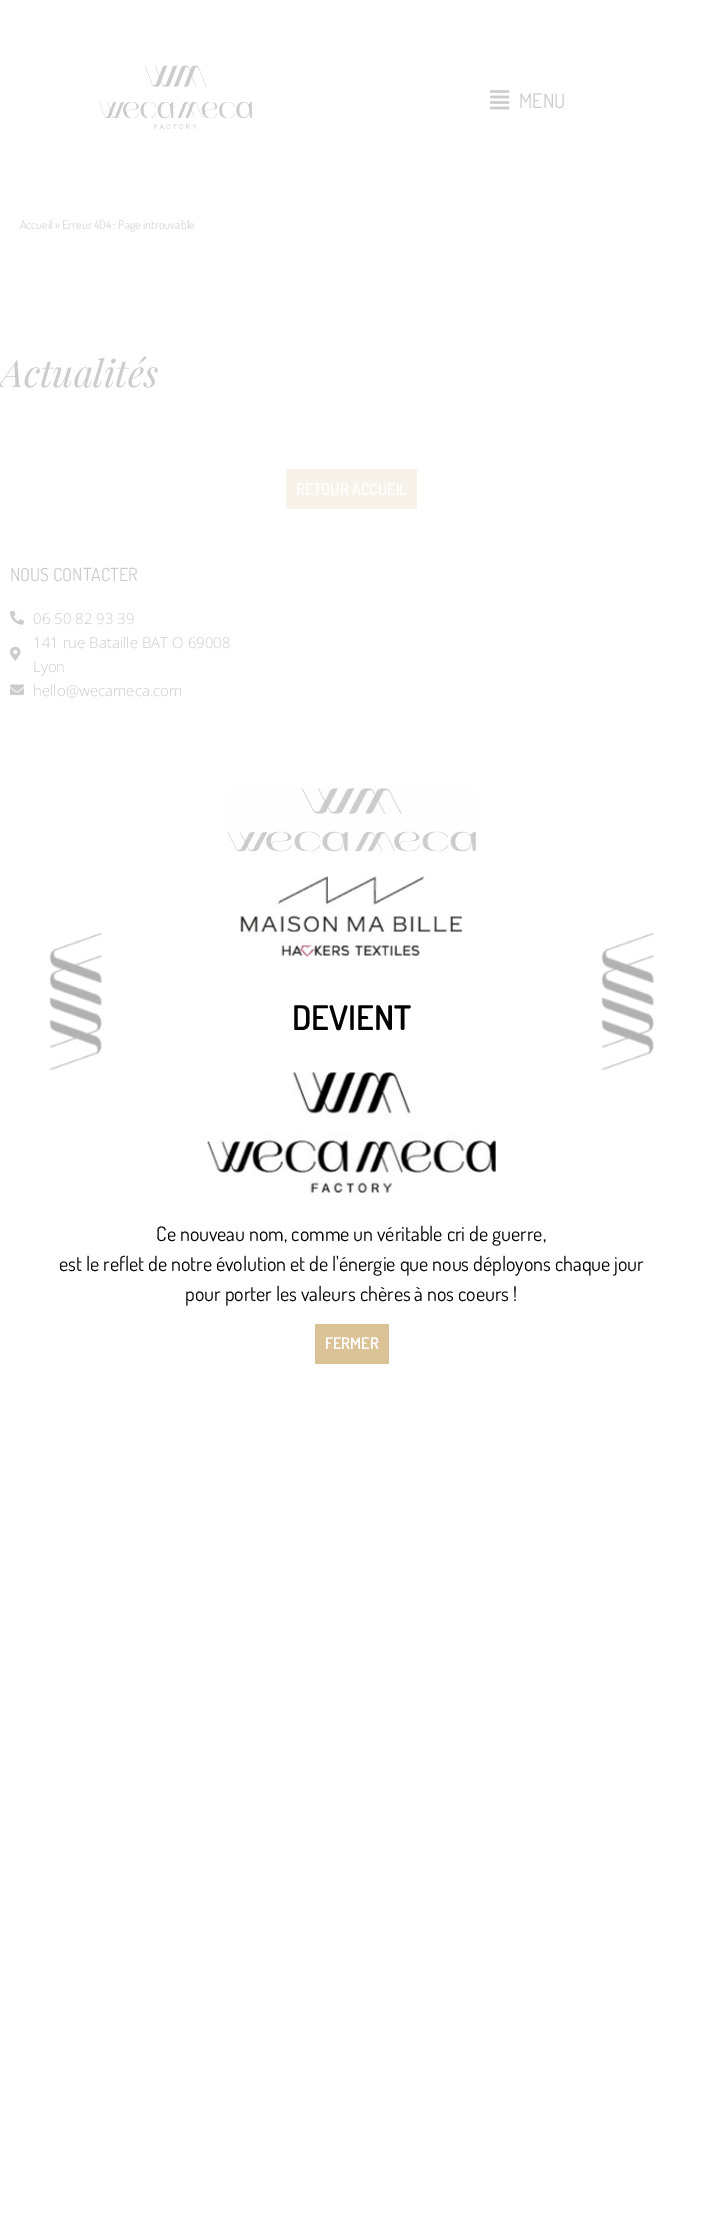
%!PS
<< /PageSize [703 2219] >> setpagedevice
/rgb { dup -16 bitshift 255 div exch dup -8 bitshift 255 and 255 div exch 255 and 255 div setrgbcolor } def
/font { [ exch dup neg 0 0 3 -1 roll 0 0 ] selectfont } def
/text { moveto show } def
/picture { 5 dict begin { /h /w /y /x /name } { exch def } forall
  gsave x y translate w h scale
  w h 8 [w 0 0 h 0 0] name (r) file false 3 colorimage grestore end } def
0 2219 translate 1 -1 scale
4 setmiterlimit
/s1 { /Dosis-Regular 20 font 16#CCCCCC rgb } def
/s2 { /Dosis-Regular 12 font 16#D6D7D6 rgb } def
/s3 { /PlayfairDisplay-Italic 37.5 font 16#CCCCCC rgb } def
/s4 { /Dosis-SemiBold 16 font 16#FFFFFF rgb } def
/s5 { /Dosis-Regular 18 font 16#CCCCCC rgb } def
/s6 { /OpenSans-Light 15 font 16#CCCCCC rgb } def
/s7 { /Dosis-SemiBold 34 font 16#000000 rgb } def
/s8 { /Dosis-Regular 20 font 16#000000 rgb } def
16#FFFFFF rgb
0 0 703 2219 rectfill
(pic1.raw) 99 65 154 65 picture
(pic2.raw) 490 90 20 20 picture
s1
(MENU) 519 108 text
s2
(Accueil » Erreur 404 : Page introuvable) 20 229 text
s3
(Actualités) 0 387 text
16#F8F3EA rgb
286 469 131 40 rectfill
s4
(RETOUR ACCUEIL) 296 495 text
s5
(NOUS CONTACTER) 10 581 text
(pic3.raw) 10 610 14 15 picture
s6
(06 50 82 93 39) 33 624 text
(pic4.raw) 10 646 11 15 picture
(141 rue Bataille BAT O 69008) 33 648 text
(Lyon) 33 672 text
(pic5.raw) 10 684 14 11 picture
(hello@wecameca.com) 33 696 text
(pic6.raw) 227 788 249 64 picture
(pic7.raw) 240 876 222 81 picture
(pic8.raw) 49 932 53 139 picture
s7
(DEVIENT) 292 1030 text
(pic8.raw) 601 932 53 139 picture
(pic9.raw) 207 1072 289 121 picture
s8
(Ce nouveau nom, comme un véritable cri de guerre,) 156 1241 text
(est le reflet de notre évolution et de l'énergie que nous déployons chaque jour) 59 1271 text
(pour porter les valeurs chères à nos coeurs !) 185 1301 text
16#DCC397 rgb
315 1324 74 40 rectfill
s4
(FERMER) 325 1349 text
showpage
